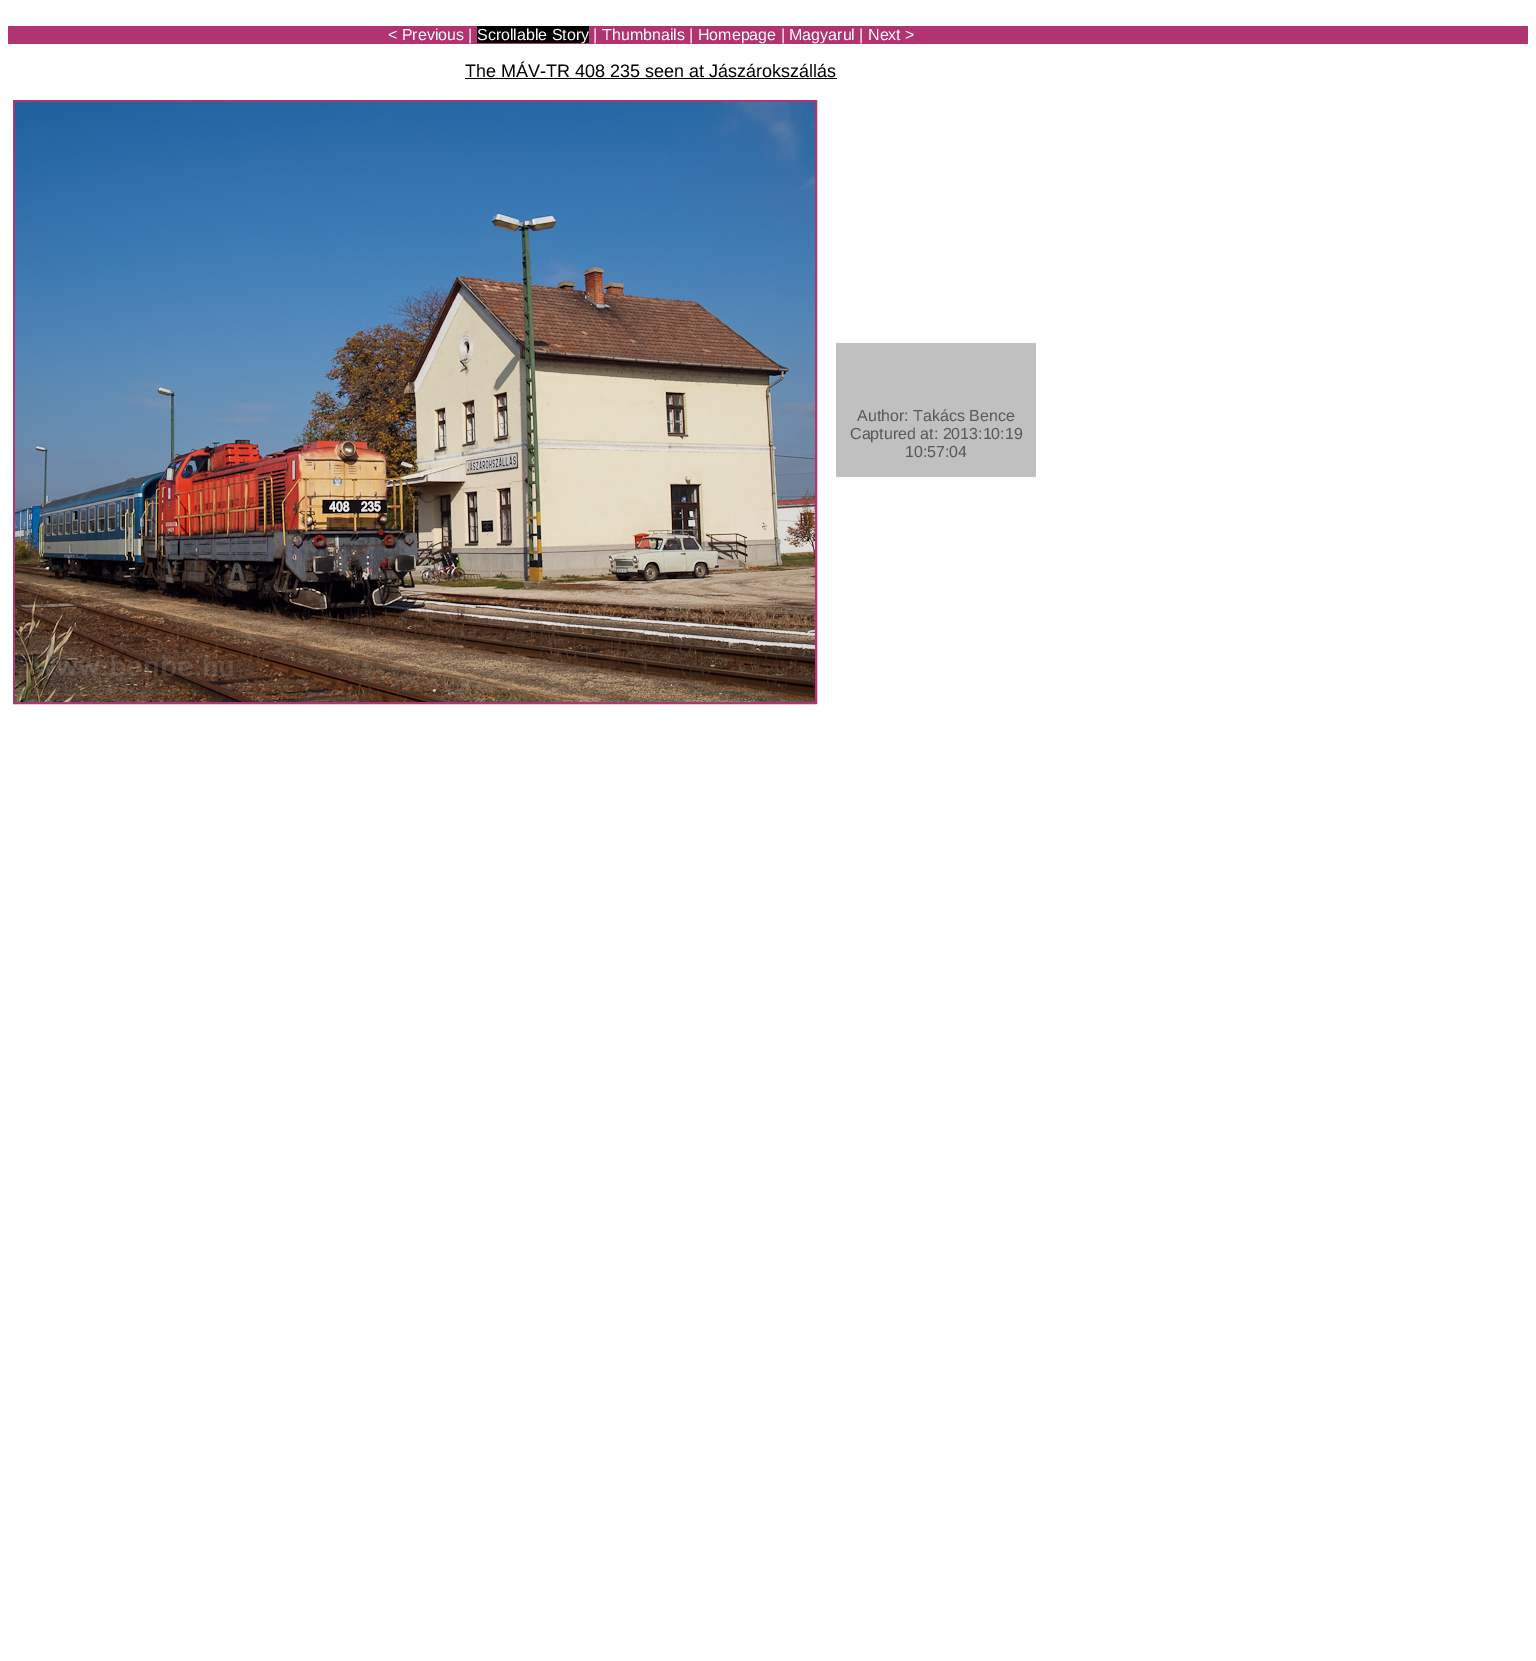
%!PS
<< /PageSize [1536 1661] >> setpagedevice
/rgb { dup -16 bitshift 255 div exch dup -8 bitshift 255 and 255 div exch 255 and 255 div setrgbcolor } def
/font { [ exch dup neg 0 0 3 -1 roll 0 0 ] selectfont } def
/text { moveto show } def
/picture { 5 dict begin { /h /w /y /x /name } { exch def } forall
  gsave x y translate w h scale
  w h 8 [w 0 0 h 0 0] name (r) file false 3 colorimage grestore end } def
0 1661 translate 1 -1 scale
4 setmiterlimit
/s1 { /LiberationSans-Regular 16 font 16#FFFFFF rgb } def
/s2 { /LiberationSans-Regular 18 font 16#000000 rgb } def
/s3 { /LiberationSans-Regular 16 font 16#595959 rgb } def
16#FFFFFF rgb
0 0 1536 1661 rectfill
16#B13472 rgb
8 26 1520 18 rectfill
s1
(< Previous |) 388 40 text
16#000000 rgb
477 26 112 17 rectfill
s1
(Scrollable Story | Thumbnails | Homepage | Magyarul | Next >) 477 40 text
s2
(The MÁV-TR 408 235 seen at Jászárokszállás) 465 77 text
465 78 372 1 rectfill
16#B13472 rgb
2 setlinewidth
14 101 802 602 rectstroke
(pic1.raw) 15 102 800 600 picture
16#C0C0C0 rgb
836 343 200 134 rectfill
s3
(Author: Takács Bence) 857 421 text
(Captured at: 2013:10:19) 850 439 text
(10:57:04) 905 457 text
showpage
